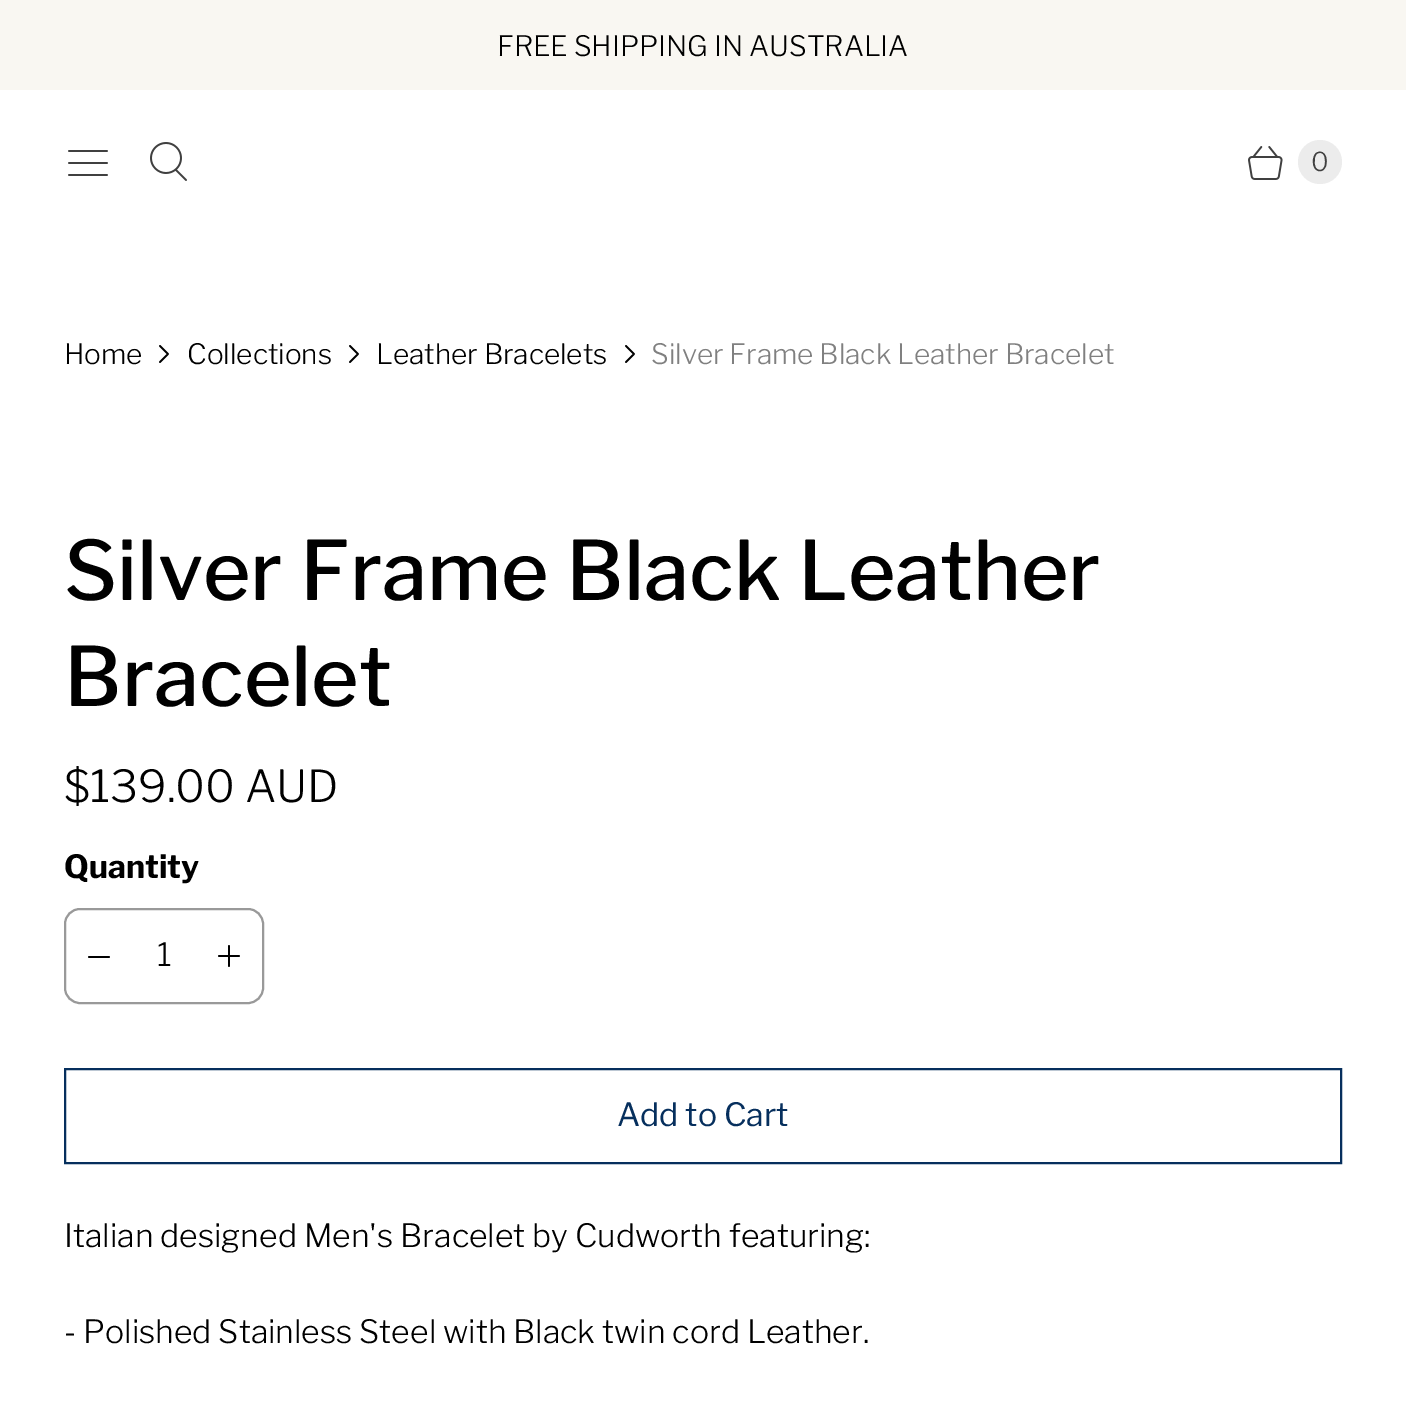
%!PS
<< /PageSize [1406 1404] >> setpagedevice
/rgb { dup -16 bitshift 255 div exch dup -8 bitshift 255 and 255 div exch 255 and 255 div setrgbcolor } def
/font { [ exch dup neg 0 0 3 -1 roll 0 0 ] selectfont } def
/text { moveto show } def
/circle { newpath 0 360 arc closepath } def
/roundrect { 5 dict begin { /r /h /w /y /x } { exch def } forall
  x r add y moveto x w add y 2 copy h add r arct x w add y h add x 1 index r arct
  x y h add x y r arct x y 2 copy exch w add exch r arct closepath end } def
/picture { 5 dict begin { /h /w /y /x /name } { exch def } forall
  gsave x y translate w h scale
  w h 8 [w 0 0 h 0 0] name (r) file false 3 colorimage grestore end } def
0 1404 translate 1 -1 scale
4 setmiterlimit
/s1 { /LibreFranklin-Light 28 font 16#000000 rgb } def
/s2 { /LibreFranklin-Light 26 font 16#404040 rgb } def
/s3 { /LibreFranklin-Light 28 font 16#808080 rgb } def
/s4 { /LibreFranklin-Medium 81.6 font 16#000000 rgb } def
/s5 { /LibreFranklin-Light 44 font 16#000000 rgb } def
/s6 { /LibreFranklin-Bold 32 font 16#000000 rgb } def
/s7 { /LibreFranklin-Light 32 font 16#000000 rgb } def
/s8 { /LibreFranklin-Regular 32 font 16#062F5D rgb } def
16#FFFFFF rgb
0 0 1406 1404 rectfill
16#F9F7F2 rgb
0 0 1406 90 rectfill
s1
(FREE SHIPPING IN AUSTRALIA) 497 56 text
(pic1.raw) 68 150 40 26 picture
(pic2.raw) 150 142 37 39 picture
(pic3.raw) 1248 146 35 34 picture
16#ECECEC rgb
1320 162 22 circle fill
s2
(0) 1311 171 text
s1
(Home) 64 364 text
(pic4.raw) 159 345 10 18 picture
(Collections) 187 364 text
(pic4.raw) 349 345 10 18 picture
(Leather Bracelets) 376 364 text
(pic4.raw) 625 345 10 18 picture
s3
(Silver Frame Black Leather Bracelet) 651 364 text
s4
(Silver Frame Black Leather) 64 600 text
(Bracelet) 64 706 text
s5
($139.00 AUD) 64 802 text
s6
(Quantity) 64 878 text
16#999999 rgb
2 setlinewidth
65 909 198 94 15 roundrect stroke
(pic5.raw) 88 956 22 2 picture
s7
(1) 157 966 text
(pic6.raw) 218 945 22 22 picture
16#062F5D rgb
65 1069 1276 94 rectstroke
s8
(Add to Cart) 617 1126 text
s7
(Italian designed Men's Bracelet by Cudworth featuring:) 64 1247 text
(- Polished Stainless Steel with Black twin cord Leather.) 64 1343 text
showpage
